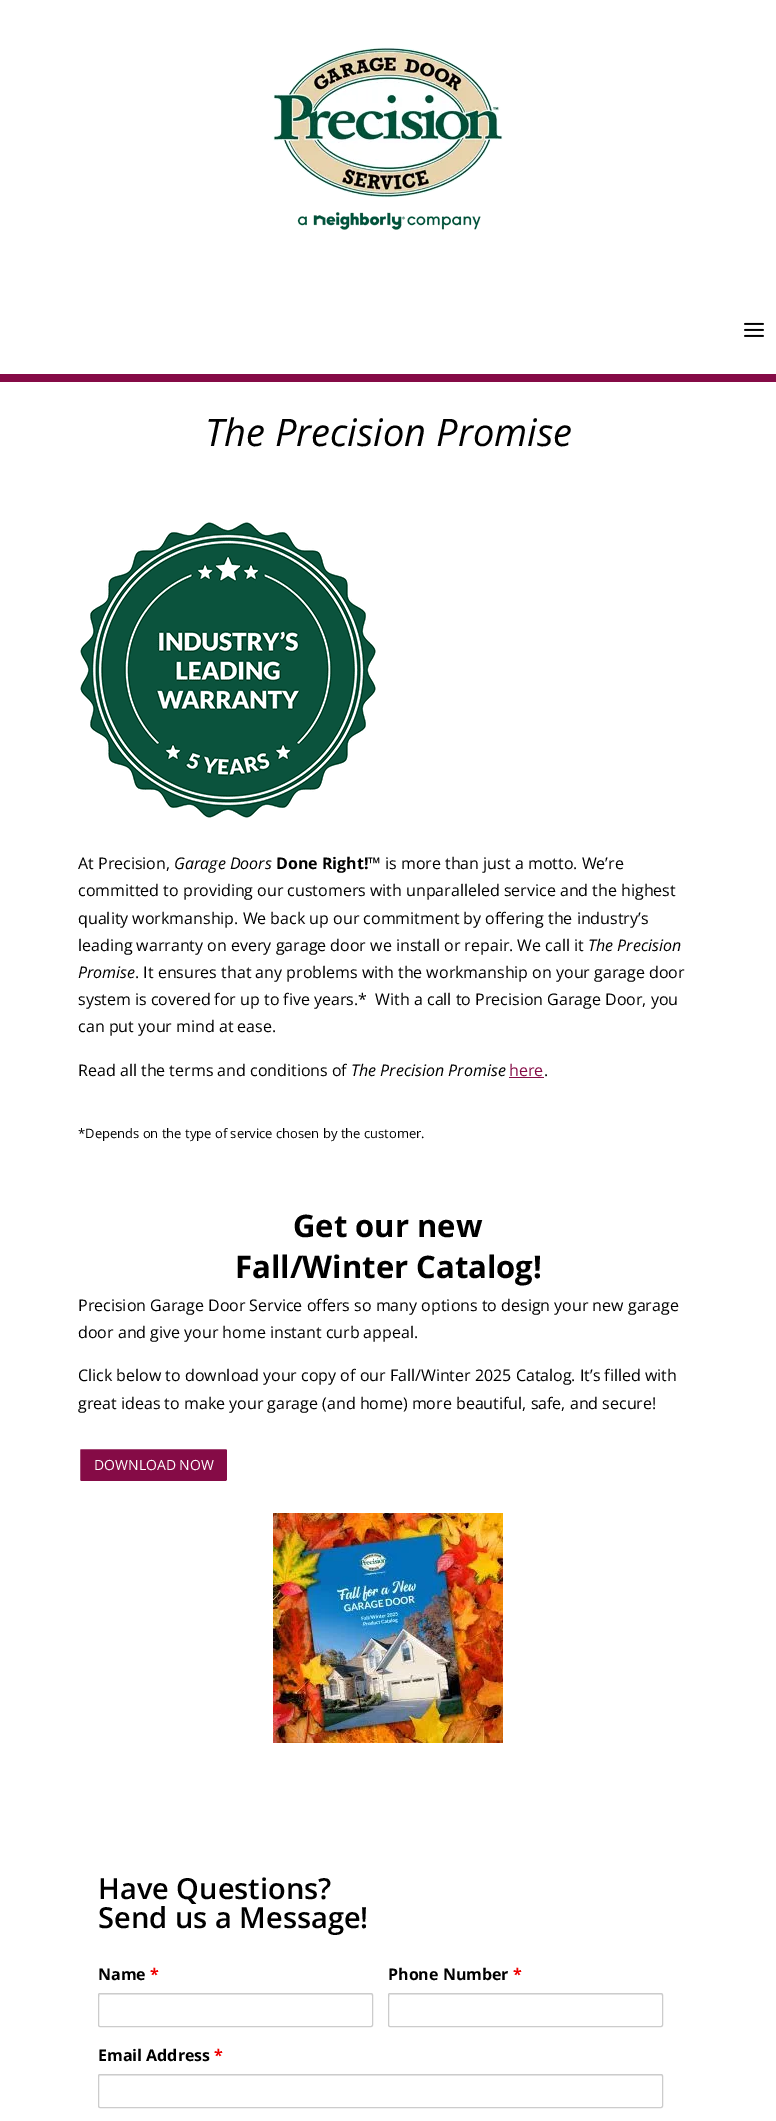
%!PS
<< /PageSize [776 2121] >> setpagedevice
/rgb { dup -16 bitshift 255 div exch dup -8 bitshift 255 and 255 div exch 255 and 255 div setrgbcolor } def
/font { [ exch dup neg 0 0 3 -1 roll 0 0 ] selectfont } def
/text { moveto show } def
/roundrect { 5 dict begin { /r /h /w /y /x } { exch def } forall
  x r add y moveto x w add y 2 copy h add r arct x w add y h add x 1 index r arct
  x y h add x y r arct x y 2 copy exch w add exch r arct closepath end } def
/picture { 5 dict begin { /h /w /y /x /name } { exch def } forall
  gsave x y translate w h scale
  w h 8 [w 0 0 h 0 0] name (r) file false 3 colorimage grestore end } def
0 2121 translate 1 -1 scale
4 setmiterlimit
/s1 { /OpenSans-Italic 38 font 16#000000 rgb } def
/s2 { /OpenSans-Regular 16 font 16#000000 rgb } def
/s3 { /OpenSans-Italic 16 font 16#000000 rgb } def
/s4 { /OpenSans-Bold 16 font 16#000000 rgb } def
/s5 { /OpenSans-Regular 16 font 16#850B46 rgb } def
/s6 { /OpenSans-Regular 13 font 16#000000 rgb } def
/s7 { /OpenSans-Bold 31 font 16#000000 rgb } def
/s8 { /OpenSans-Regular 14 font 16#FFFFFF rgb } def
/s9 { /OpenSans-SemiBold 29 font 16#000000 rgb } def
/s10 { /OpenSans-Bold 16 font 16#EE0000 rgb } def
16#FFFFFF rgb
0 0 776 2121 rectfill
(pic1.raw) 273 47 230 183 picture
(pic2.raw) 744 322 20 15 picture
16#850B46 rgb
0 374 776 8 rectfill
s1
(The Precision Promise) 205 446 text
(pic3.raw) 80 522 296 296 picture
s2
(At Precision,) 78 869 text
s3
(Garage Doors) 174 869 text
s4
(Done Right!™) 276 869 text
s2
(is more than just a motto. We’re) 385 869 text
(committed to providing our customers with unparalleled service and the highest) 78 896 text
(quality workmanship. We back up our commitment by offering the industry’s) 78 924 text
(leading warranty on every garage door we install or repair. We call it) 78 951 text
s3
(The Precision) 588 951 text
(Promise) 78 978 text
s2
(. It ensures that any problems with the workmanship on your garage door) 135 978 text
(system is covered for up to five years.*  With a call to Precision Garage Door, you) 78 1005 text
(can put your mind at ease.) 78 1032 text
(Read all the terms and conditions of) 78 1076 text
s3
(The Precision Promise) 351 1076 text
s5
(here) 509 1076 text
509 1077 35 1 rectfill
s2
(.) 544 1076 text
s6
(*Depends on the type of service chosen by the customer.) 78 1138 text
s7
(Get our new) 293 1237 text
(Fall/Winter Catalog!) 235 1278 text
s2
(Precision Garage Door Service offers so many options to design your new garage) 78 1311 text
(door and give your home instant curb appeal.) 78 1338 text
(Click below to download your copy of our Fall/Winter 2025 Catalog. It’s filled with) 78 1381 text
(great ideas to make your garage \(and home\) more beautiful, safe, and secure!) 78 1409 text
16#850B46 rgb
79 1448 149 34 2 roundrect gsave fill grestore
16#FFFFFF rgb
2 setlinewidth
stroke
s8
(DOWNLOAD NOW) 94 1470 text
(pic4.raw) 273 1513 230 230 picture
s9
(Have Questions?) 98 1899 text
(Send us a Message!) 98 1928 text
s4
(Name) 98 1980 text
s10
(*) 150 1980 text
16#ECECEC rgb
100 1995 moveto 371 1995 lineto 372 1996 lineto 372 1994 lineto 371 1994 lineto 100 1994 lineto 99 1994 99 1996 99 1997 curveto closepath fill
16#CCCCCC rgb
1 setlinewidth
98.5 1993.5 274 33 1.5 roundrect stroke
s4
(Phone Number) 388 1980 text
s10
(*) 513 1980 text
16#ECECEC rgb
390 1995 moveto 661 1995 lineto 662 1996 lineto 662 1994 lineto 661 1994 lineto 390 1994 lineto 389 1994 389 1996 389 1997 curveto closepath fill
16#CCCCCC rgb
388.5 1993.5 274 33 1.5 roundrect stroke
s4
(Email Address) 98 2061 text
s10
(*) 214 2061 text
16#ECECEC rgb
100 2076 moveto 661 2076 lineto 662 2076 662 2076 662 2077 curveto 662 2076 662 2075 661 2075 curveto 100 2075 lineto 99 2075 99 2076 99 2077 curveto 99 2076 99 2076 100 2076 curveto closepath fill
16#CCCCCC rgb
98.5 2074.5 564 33 1.5 roundrect stroke
showpage
